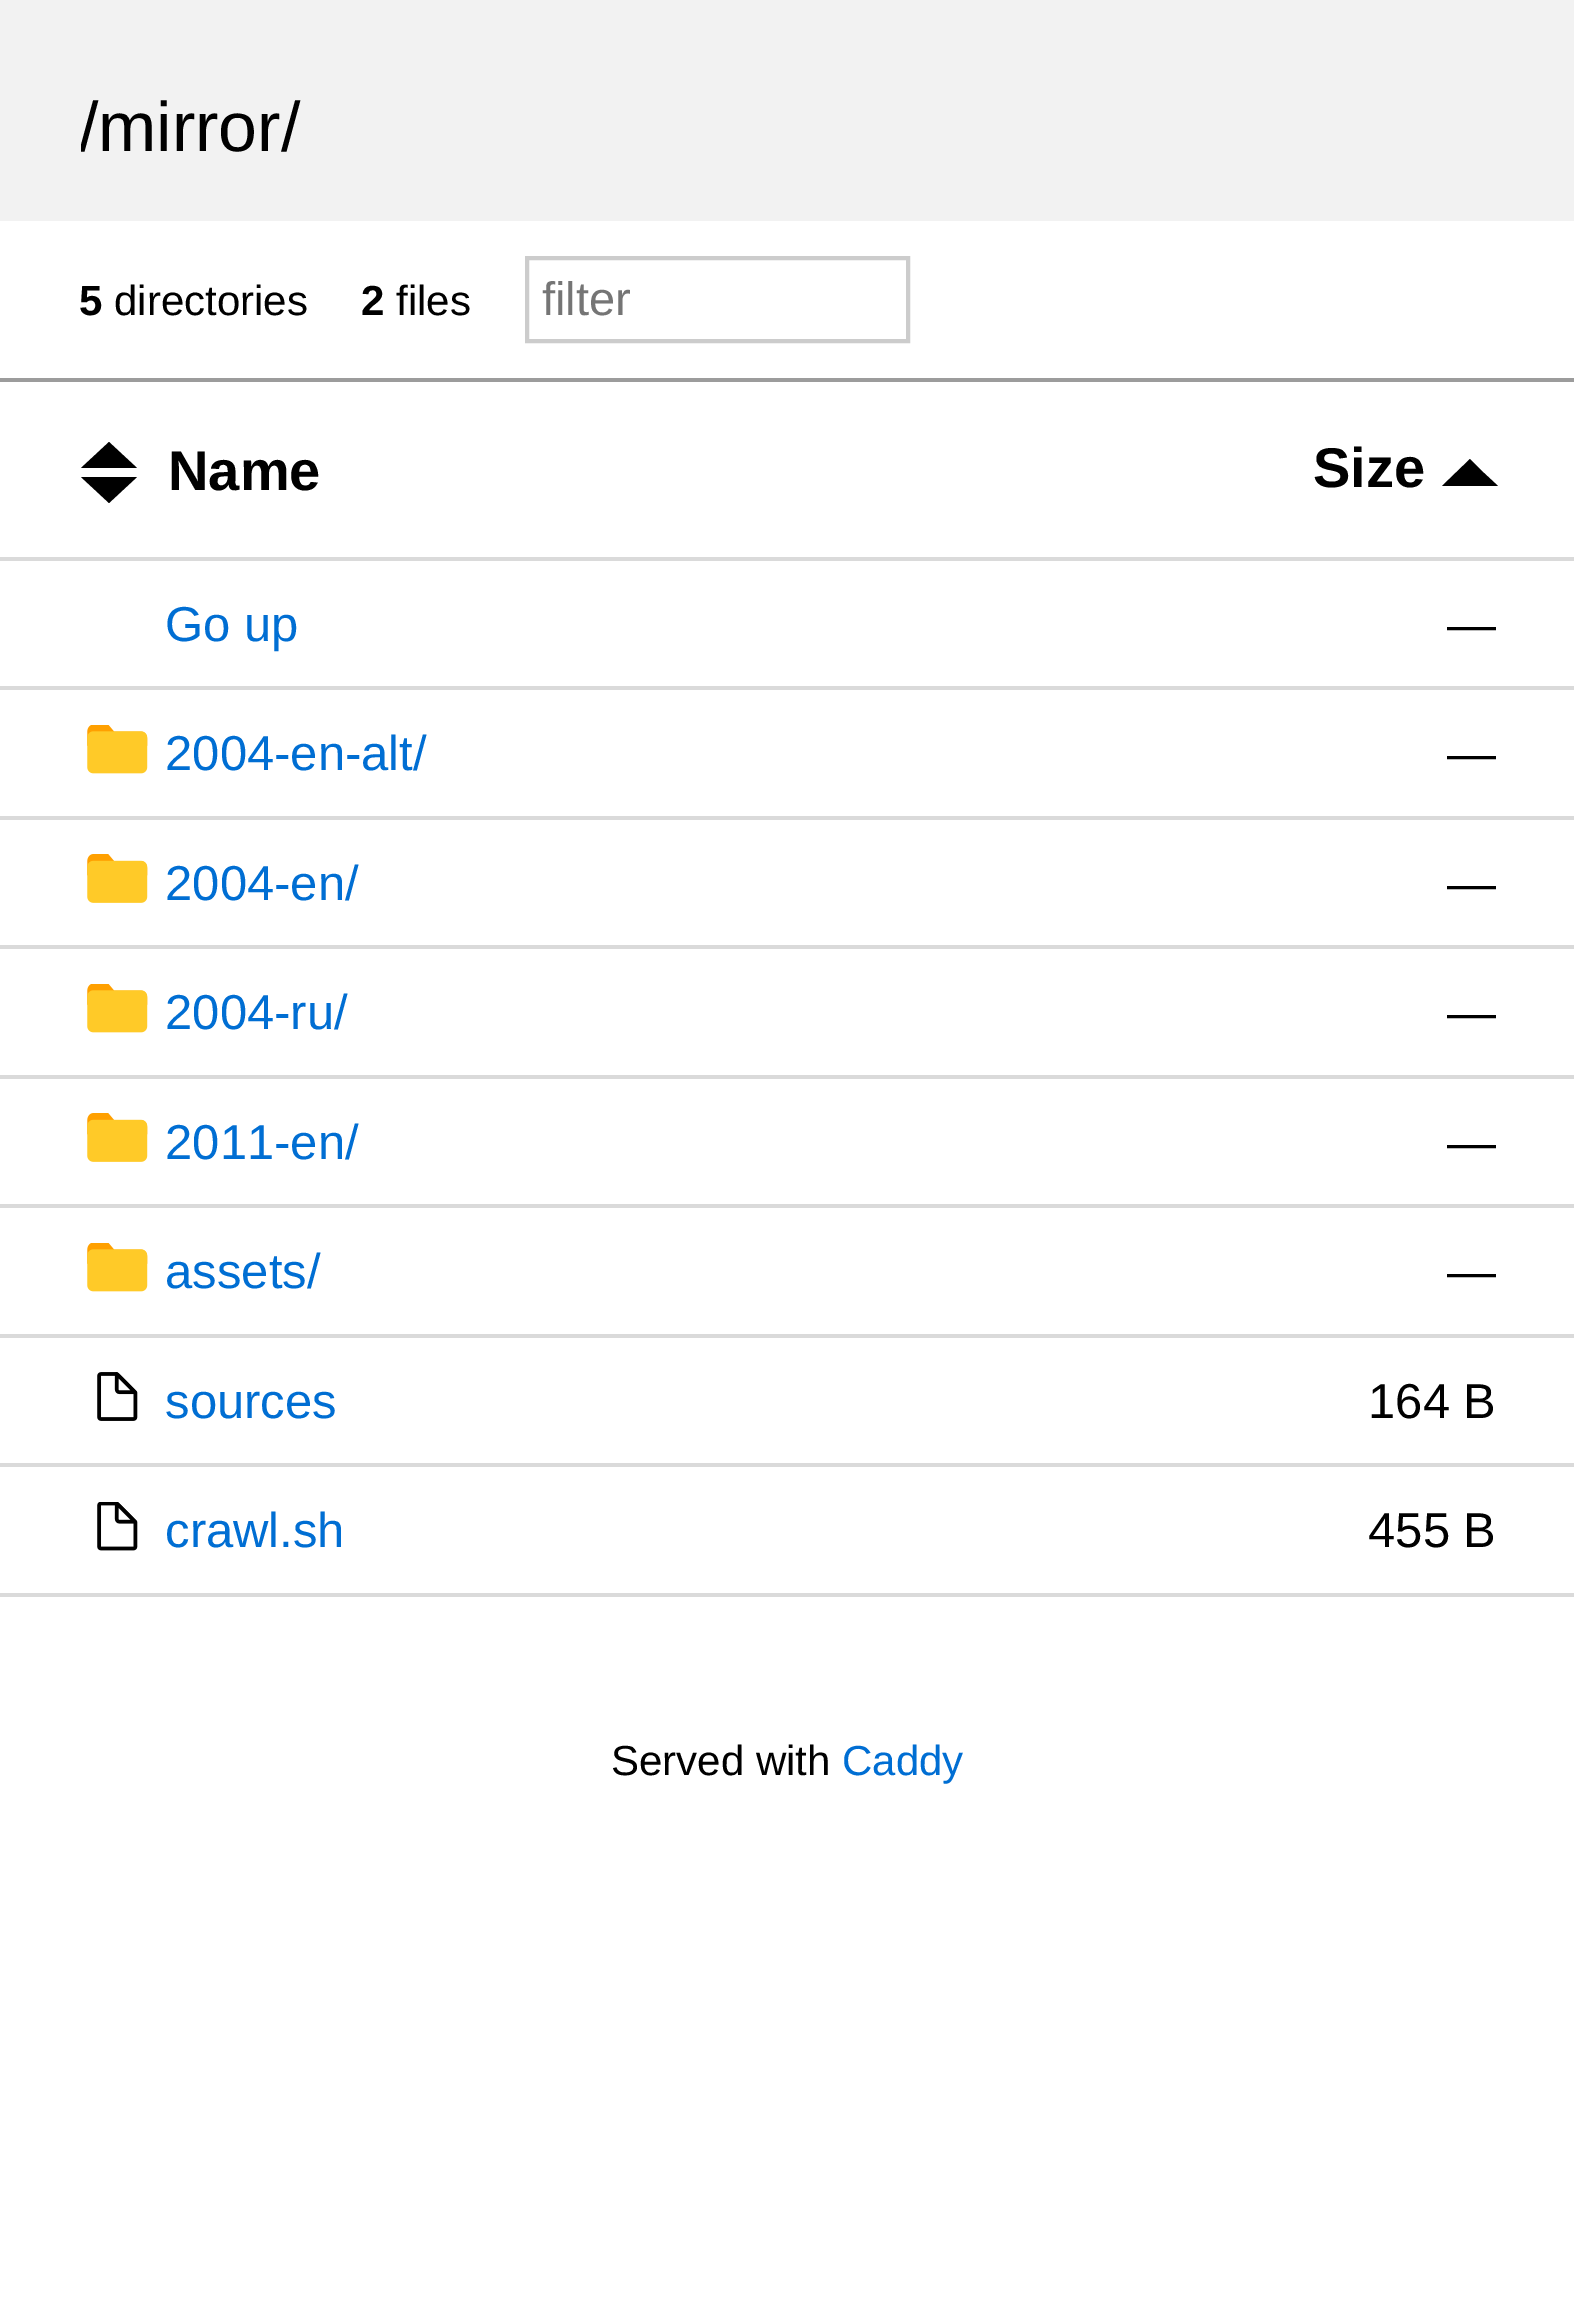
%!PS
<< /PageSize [1574 2305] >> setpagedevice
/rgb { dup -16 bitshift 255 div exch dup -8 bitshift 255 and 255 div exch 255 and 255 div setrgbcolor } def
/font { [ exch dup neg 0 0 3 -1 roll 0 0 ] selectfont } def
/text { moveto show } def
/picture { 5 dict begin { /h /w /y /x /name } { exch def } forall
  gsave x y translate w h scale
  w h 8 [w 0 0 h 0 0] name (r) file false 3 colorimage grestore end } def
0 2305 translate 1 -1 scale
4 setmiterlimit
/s1 { /LiberationSans-Regular 70 font 16#000000 rgb } def
/s2 { /LiberationSans-Bold 42 font 16#000000 rgb } def
/s3 { /LiberationSans-Regular 42 font 16#000000 rgb } def
/s4 { /LiberationSans-Regular 47 font 16#757575 rgb } def
/s5 { /LiberationSans-Bold 56 font 16#000000 rgb } def
/s6 { /LiberationSans-Regular 49 font 16#006ED3 rgb } def
/s7 { /LiberationSans-Regular 49 font 16#000000 rgb } def
/s8 { /LiberationSans-Regular 42 font 16#006ED3 rgb } def
16#FFFFFF rgb
0 0 1574 2305 rectfill
16#F2F2F2 rgb
0 0 1574 221 rectfill
gsave
81 88 1417 80 rectclip
s1
(/) 79 151 text
grestore
s1
(mirror/) 98 151 text
16#9C9C9C rgb
0 378 1574 4 rectfill
s2
(5) 79 315 text
s3
(directories) 114 315 text
s2
(2) 361 315 text
s3
(files) 396 315 text
16#CCCCCC rgb
4 setlinewidth
527 258 381 83 rectstroke
s4
(filter) 542 315 text
16#DADADA rgb
0 557 1574 4 rectfill
16#000000 rgb
137 468 moveto 81 468 lineto 109 442 lineto 123 455 lineto closepath 137 477 moveto 81 477 lineto 109 503 lineto 123 490 lineto closepath fill
s5
(Name) 168 490 text
(Size) 1313 487 text
1498 486 moveto 1442 486 lineto 1470 459 lineto 1484 473 lineto closepath fill
16#DADADA rgb
0 686 1574 4 rectfill
s6
(Go up) 165 641 text
s7
(—) 1447 641 text
16#DADADA rgb
0 816 1574 4 rectfill
(pic1.raw) 87 725 61 49 picture
s6
(2004-en-alt/) 165 770 text
s7
(—) 1447 770 text
16#DADADA rgb
0 945 1574 4 rectfill
(pic2.raw) 87 854 61 49 picture
s6
(2004-en/) 165 900 text
s7
(—) 1447 900 text
16#DADADA rgb
0 1075 1574 4 rectfill
(pic1.raw) 87 984 61 49 picture
s6
(2004-ru/) 165 1029 text
s7
(—) 1447 1029 text
16#DADADA rgb
0 1204 1574 4 rectfill
(pic2.raw) 87 1113 61 49 picture
s6
(2011-en/) 165 1159 text
s7
(—) 1447 1159 text
16#DADADA rgb
0 1334 1574 4 rectfill
(pic1.raw) 87 1243 61 49 picture
s6
(assets/) 165 1288 text
s7
(—) 1447 1288 text
16#DADADA rgb
0 1463 1574 4 rectfill
(pic3.raw) 97 1372 41 49 picture
s6
(sources) 165 1418 text
s7
(164 B) 1368 1418 text
16#DADADA rgb
0 1593 1574 4 rectfill
(pic4.raw) 97 1502 41 49 picture
s6
(crawl.sh) 165 1547 text
s7
(455 B) 1368 1547 text
s3
(Served with) 611 1775 text
s8
(Caddy) 842 1775 text
showpage
